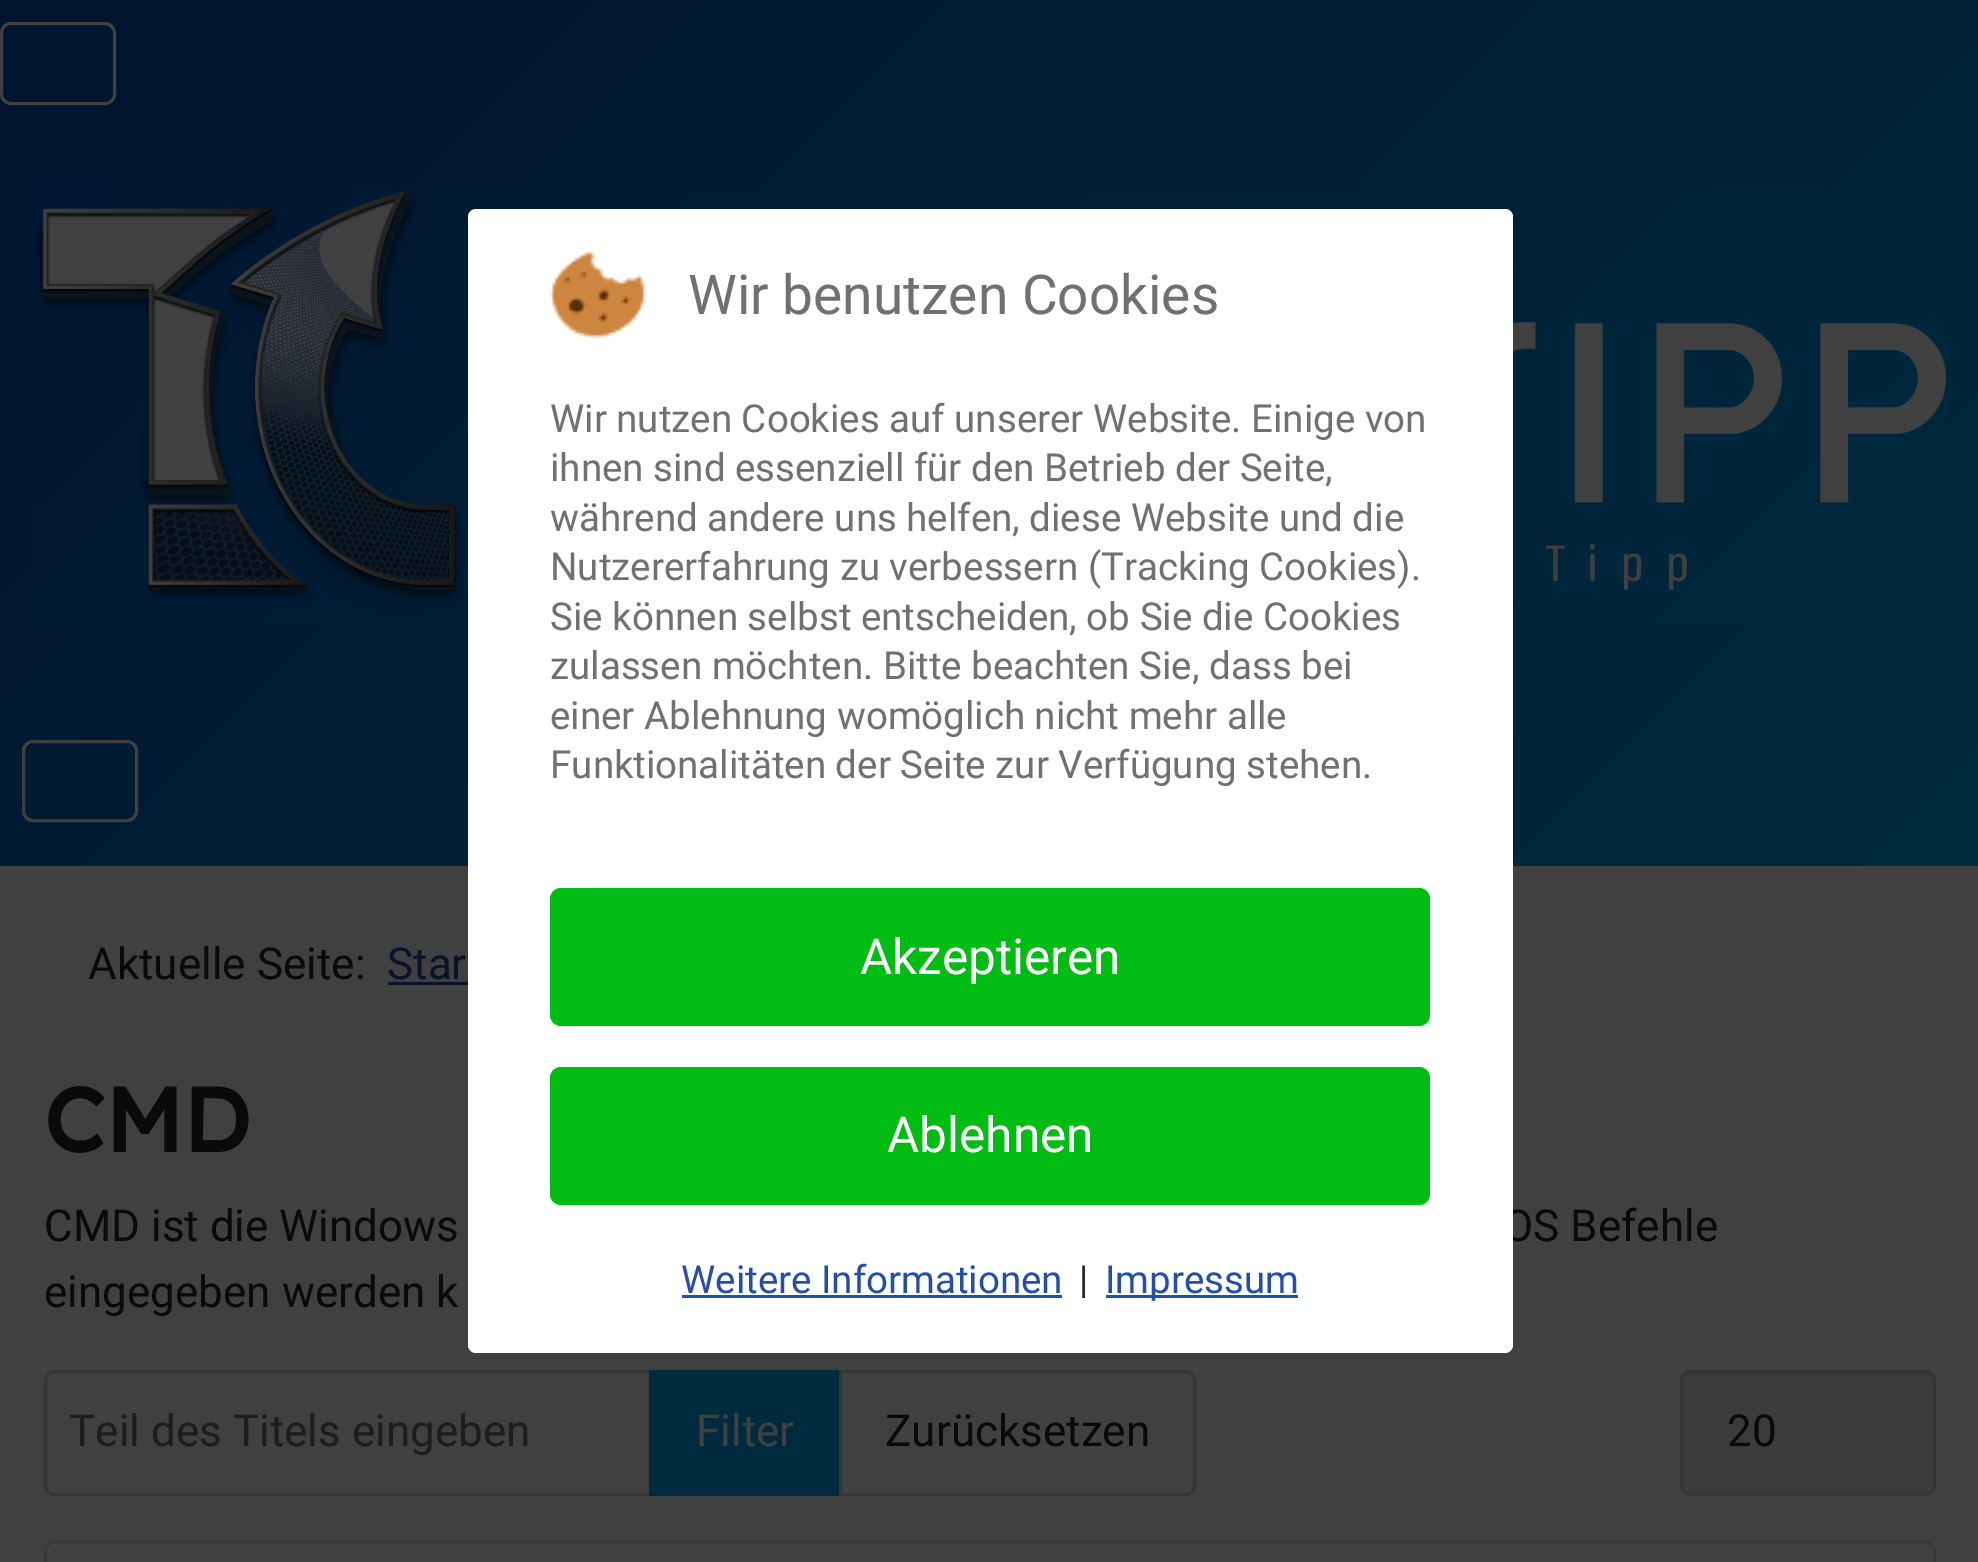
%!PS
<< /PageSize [1978 1562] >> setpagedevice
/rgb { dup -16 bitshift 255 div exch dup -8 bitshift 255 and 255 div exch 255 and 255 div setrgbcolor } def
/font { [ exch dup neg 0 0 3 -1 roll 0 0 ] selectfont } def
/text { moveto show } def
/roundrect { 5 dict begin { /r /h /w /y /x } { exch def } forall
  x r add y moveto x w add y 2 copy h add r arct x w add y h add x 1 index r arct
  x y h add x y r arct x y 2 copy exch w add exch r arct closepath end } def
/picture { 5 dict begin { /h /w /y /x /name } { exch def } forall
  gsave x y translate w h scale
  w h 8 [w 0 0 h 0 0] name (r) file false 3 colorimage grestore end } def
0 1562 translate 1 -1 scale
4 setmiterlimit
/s1 { /Roboto-Regular 44 font 16#090A0B rgb } def
/s2 { /Roboto-Regular 55 font 16#707070 rgb } def
/s3 { /Roboto-Regular 38.5 font 16#707070 rgb } def
/s4 { /Roboto-Regular 49.5 font 16#FFFFFF rgb } def
/s5 { /Roboto-Regular 38.5 font 16#224FAA rgb } def
/s6 { /Roboto-Regular 38.5 font 16#22262A rgb } def
/s7 { /Roboto-Regular 44 font 16#09142B rgb } def
/s8 { /LexendDeca-Bold 90 font 16#090A0B rgb } def
/s9 { /Roboto-Regular 44 font 16#1D1D1D rgb } def
/s10 { /Roboto-Regular 44 font 16#404040 rgb } def
16#404040 rgb
0 0 1978 1562 rectfill
gsave 0 0 moveto 1978 0 lineto 1978 866 lineto 0 866 lineto closepath clip newpath
<< /ShadingType 2 /ColorSpace /DeviceRGB /Coords [278 -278 1702 1145] /Extend [true true] /Function << /FunctionType 2 /Domain [0 1] /C0 [0.004 0.078 0.188] /C1 [0 0.169 0.243] /N 1 >> >> shfill grestore
3 setlinewidth
1.5 23.5 113 80 9.5 roundrect stroke
(pic1.raw) 35 190 1911 432 picture
23.5 741.5 113 79 9.5 roundrect stroke
s1
(OS Befehle) 1503 1241 text
16#FFFFFF rgb
468 209 1045 1144 8 roundrect fill
(pic2.raw) 550 250 97 89 picture
s2
(Wir benutzen Cookies) 688 314 text
s3
(Wir nutzen Cookies auf unserer Website. Einige von) 550 432 text
(ihnen sind essenziell für den Betrieb der Seite,) 550 481 text
(während andere uns helfen, diese Website und die) 550 531 text
(Nutzererfahrung zu verbessern \(Tracking Cookies\).) 550 580 text
(Sie können selbst entscheiden, ob Sie die Cookies) 550 630 text
(zulassen möchten. Bitte beachten Sie, dass bei) 550 679 text
(einer Ablehnung womöglich nicht mehr alle) 550 729 text
(Funktionalitäten der Seite zur Verfügung stehen.) 550 778 text
16#00BC13 rgb
550 888 880 138 11 roundrect fill
s4
(Akzeptieren) 860 974 text
16#00BC13 rgb
550 1067 880 138 11 roundrect fill
s4
(Ablehnen) 887 1152 text
s5
(Weitere Informationen) 681 1293 text
682 1295 380 3 rectfill
s6
(|) 1079 1293 text
16#224FAA rgb
1106 1295 192 3 rectfill
(Impressum) 1105 1293 text
s1
(Aktuelle Seite:) 88 979 text
s7
(Star) 387 979 text
388 982 80 3 rectfill
s8
(CMD) 44 1152 text
s1
(CMD ist die Windows) 44 1241 text
(eingegeben werden k) 44 1307 text
16#343537 rgb
55 1371.5 moveto 650.5 1371.5 lineto 650.5 1494.5 lineto 55 1494.5 lineto 50 1494.5 45.5 1490 45.5 1485 curveto 45.5 1381 lineto 45.5 1376 50 1371.5 55 1371.5 curveto closepath stroke
s9
(Teil des Titels eingeben) 69 1446 text
16#002B3E rgb
649 1370 190 126 rectfill
s10
(Filter) 696 1446 text
16#343537 rgb
840.5 1371.5 moveto 1185 1371.5 lineto 1190 1371.5 1194.5 1376 1194.5 1381 curveto 1194.5 1485 lineto 1194.5 1490 1190 1494.5 1185 1494.5 curveto 840.5 1494.5 lineto closepath stroke
s1
(Zurücksetzen) 885 1446 text
16#3B3B3C rgb
1681.5 1371.5 253 123 9.5 roundrect gsave fill grestore
16#343537 rgb
stroke
s1
(20) 1727 1446 text
16#38393A rgb
55 1541.5 moveto 1925 1541.5 lineto 1930 1541.5 1934.5 1546 1934.5 1551 curveto 1934.5 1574.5 lineto 45.5 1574.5 lineto 45.5 1551 lineto 45.5 1546 50 1541.5 55 1541.5 curveto closepath stroke
showpage
